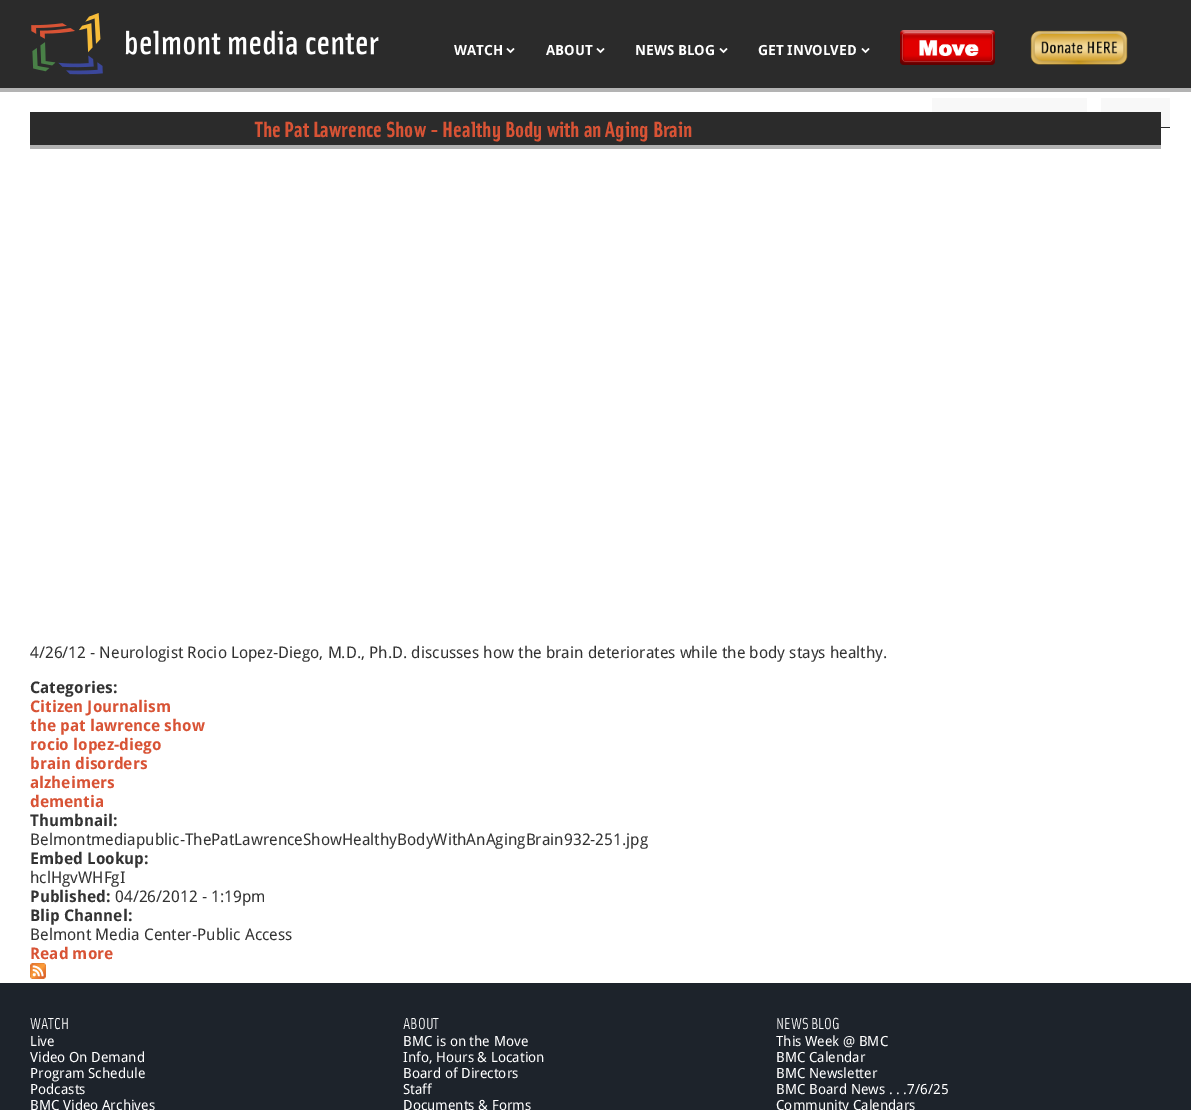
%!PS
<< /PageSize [1191 1110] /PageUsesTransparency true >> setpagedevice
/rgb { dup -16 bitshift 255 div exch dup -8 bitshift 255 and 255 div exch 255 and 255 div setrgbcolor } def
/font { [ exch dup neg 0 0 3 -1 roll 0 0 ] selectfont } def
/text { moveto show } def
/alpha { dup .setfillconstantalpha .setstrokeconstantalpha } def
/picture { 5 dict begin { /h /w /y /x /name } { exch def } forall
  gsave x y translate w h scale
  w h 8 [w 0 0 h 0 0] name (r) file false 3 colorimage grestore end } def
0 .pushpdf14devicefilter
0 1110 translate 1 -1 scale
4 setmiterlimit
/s1 { /DroidSans-Bold 14 font 16#FFFFFF rgb } def
/s2 { /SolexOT-Bold 22 font 16#D85335 rgb } def
/s3 { /DroidSans-Regular 16 font 16#333333 rgb } def
/s4 { /DroidSans-Bold 16 font 16#333333 rgb } def
/s5 { /DroidSans-Bold 16 font 16#D85335 rgb } def
/s6 { /SolexOT-Regular 16 font 16#FFFFFF rgb } def
/s7 { /DroidSans-Regular 14 font 16#FFFFFF rgb } def
16#FFFFFF rgb
0 0 1191 1110 rectfill
16#B3B3B3 rgb
0 88 1191 4 rectfill
16#2B2B2B rgb
0 0 1191 88 rectfill
(pic1.raw) 31 13 348 62 picture
s1
(WATCH) 454 55 text
(pic2.raw) 506 48 9 6 picture
(ABOUT) 546 55 text
(pic2.raw) 596 48 9 6 picture
(NEWS BLOG) 635 55 text
(pic2.raw) 719 48 9 6 picture
(GET INVOLVED) 758 55 text
(pic2.raw) 861 48 9 6 picture
(pic3.raw) 900 30 95 35 picture
(pic4.raw) 1030 30 98 35 picture
16#F8F8F8 rgb
932 98 155 14 rectfill
1101 98 69 29 rectfill
16#2B2B2B rgb
1161 127 9 1 rectfill
0.3 alpha
16#000000 rgb
30 145 1131 4 rectfill
1 alpha
16#2B2B2B rgb
30 112 1131 33 rectfill
s2
(The Pat Lawrence Show - Healthy Body with an Aging Brain) 255 137 text
s3
(4/26/12 - Neurologist Rocio Lopez-Diego, M.D., Ph.D. discusses how the brain deteriorates while the body stays healthy.) 30 658 text
s4
(Categories:) 30 693 text
s5
(Citizen Journalism) 30 712 text
(the pat lawrence show) 30 731 text
(rocio lopez-diego) 30 750 text
(brain disorders) 30 769 text
(alzheimers) 30 788 text
(dementia) 30 807 text
s4
(Thumbnail:) 30 826 text
s3
(Belmontmediapublic-ThePatLawrenceShowHealthyBodyWithAnAgingBrain932-251.jpg) 30 845 text
s4
(Embed Lookup:) 30 864 text
s3
(hclHgvWHFgI) 30 883 text
s4
(Published:) 30 902 text
s3
(04/26/2012 - 1:19pm) 115 902 text
s4
(Blip Channel:) 30 921 text
s3
(Belmont Media Center-Public Access) 30 940 text
s5
(Read more) 30 959 text
(pic5.raw) 30 963 16 16 picture
16#1D232B rgb
0 983 1191 127 rectfill
s6
(WATCH) 30 1029 text
s7
(Live) 30 1046 text
(Video On Demand) 30 1062 text
(Program Schedule) 30 1078 text
(Podcasts) 30 1094 text
(BMC Video Archives) 30 1110 text
s6
(ABOUT) 403 1029 text
s7
(BMC is on the Move) 403 1046 text
(Info, Hours & Location) 403 1062 text
(Board of Directors) 403 1078 text
(Staff) 403 1094 text
(Documents & Forms) 403 1110 text
s6
(NEWS BLOG) 776 1029 text
s7
(This Week @ BMC) 776 1046 text
(BMC Calendar) 776 1062 text
(BMC Newsletter) 776 1078 text
(BMC Board News . . .7/6/25) 776 1094 text
(Community Calendars) 776 1110 text
.poppdf14devicefilter showpage
